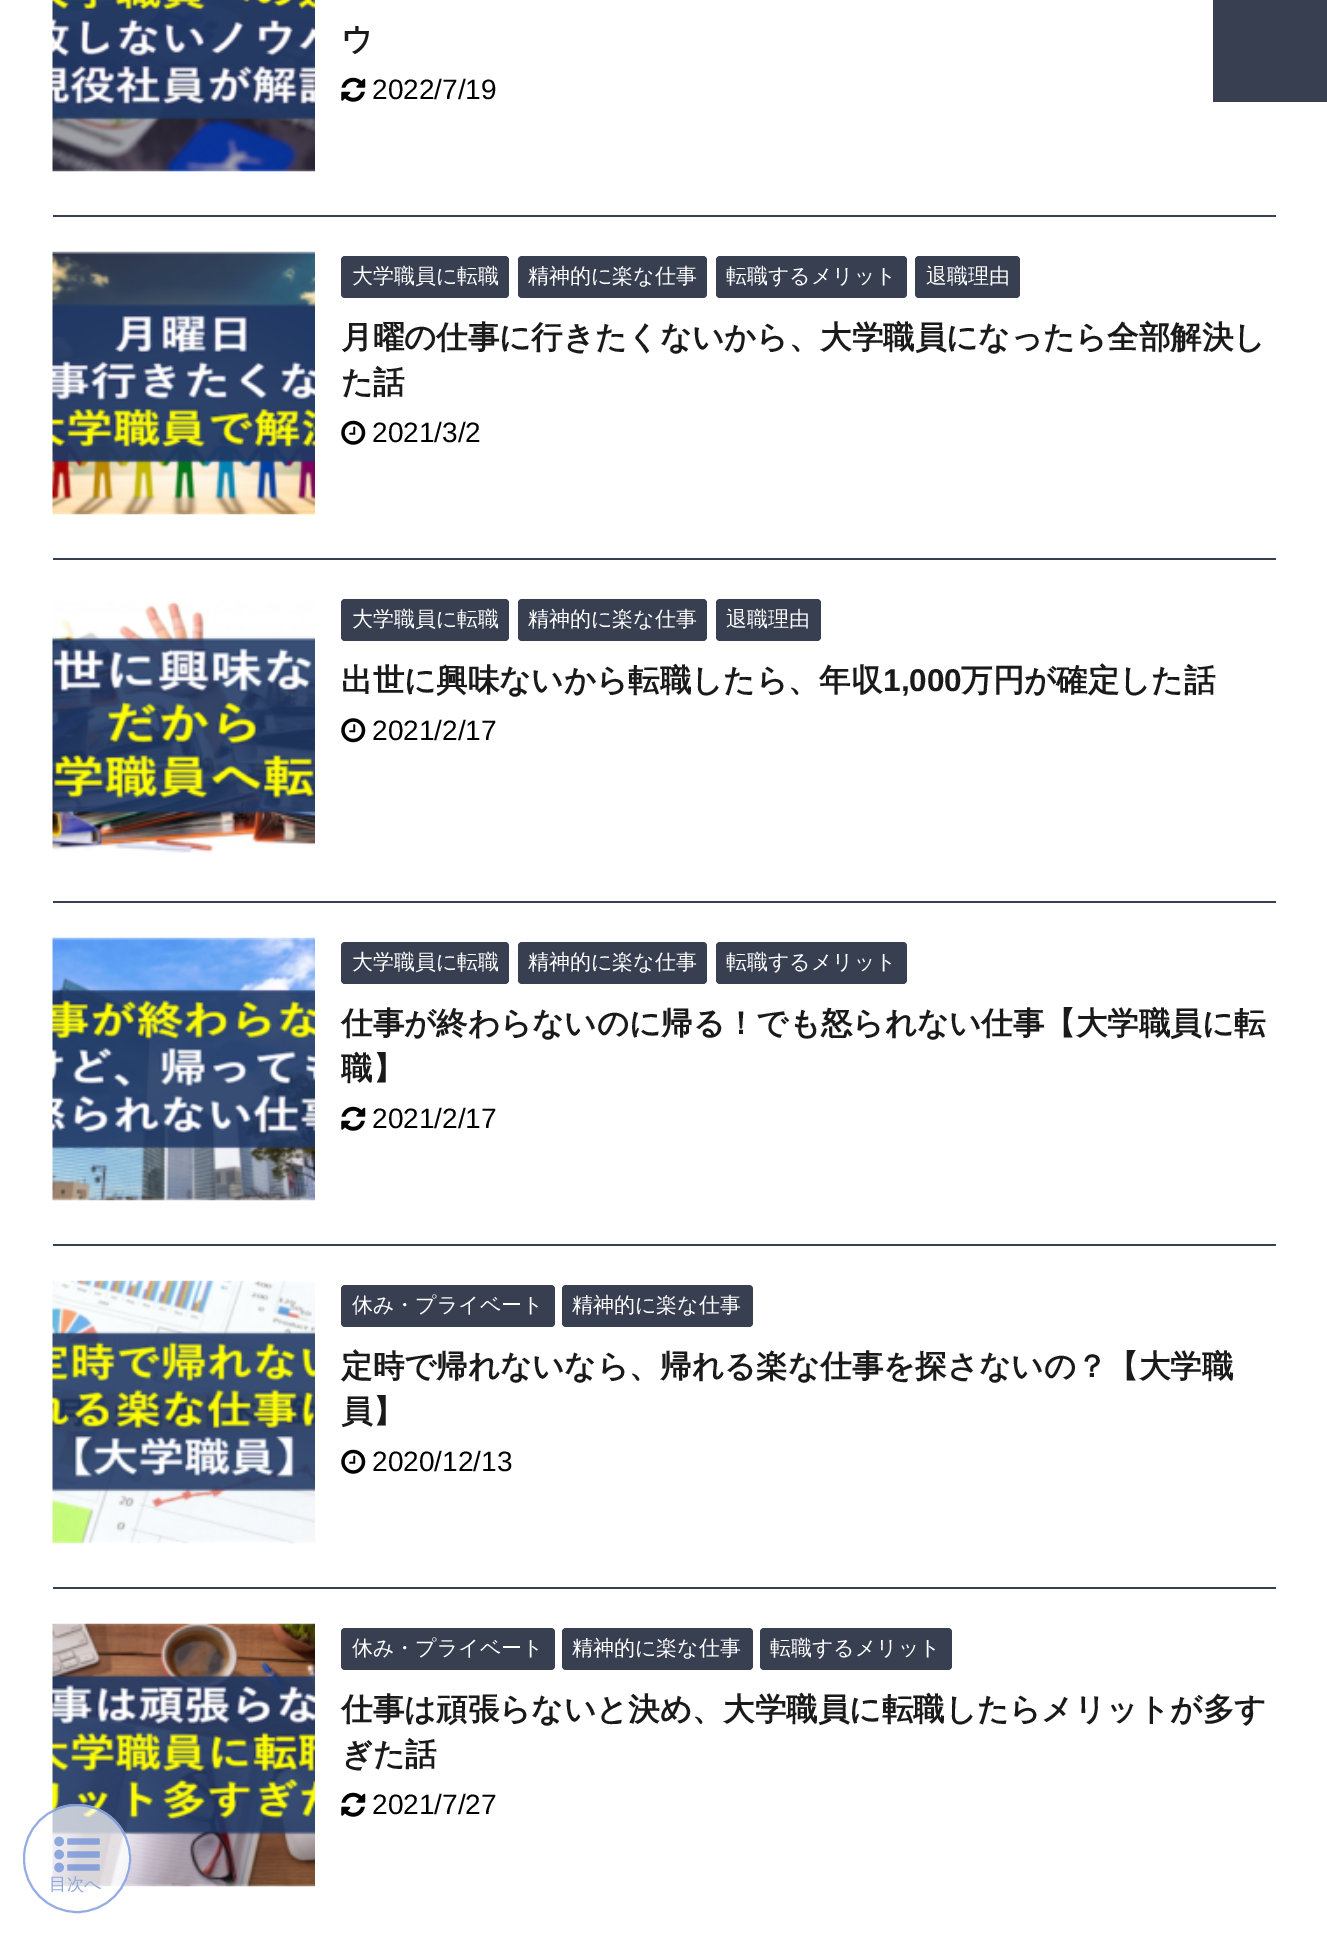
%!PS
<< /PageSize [1327 1947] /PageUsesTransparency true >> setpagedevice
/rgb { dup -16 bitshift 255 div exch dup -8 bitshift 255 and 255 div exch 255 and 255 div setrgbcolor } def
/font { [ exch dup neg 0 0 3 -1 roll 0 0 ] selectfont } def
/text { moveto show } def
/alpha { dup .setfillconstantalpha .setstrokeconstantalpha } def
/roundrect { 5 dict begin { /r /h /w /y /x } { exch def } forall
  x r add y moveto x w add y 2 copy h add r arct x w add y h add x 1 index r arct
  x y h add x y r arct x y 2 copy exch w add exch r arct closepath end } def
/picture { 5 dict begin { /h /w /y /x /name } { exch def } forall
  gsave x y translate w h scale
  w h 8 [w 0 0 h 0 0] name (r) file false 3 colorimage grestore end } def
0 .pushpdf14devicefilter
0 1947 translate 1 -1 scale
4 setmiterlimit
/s1 { /WenQuanYiZenHei-Bold 31.5 font 16#1A1A1A rgb } def
/s2 { /LiberationSans-Regular 28 font 16#000000 rgb } def
/s3 { /WenQuanYiZenHei-Medium 21 font 16#FFFFFF rgb } def
/s4 { /LiberationSans-Bold 31.5 font 16#1A1A1A rgb } def
/s5 { /WenQuanYiZenHei-Medium 17.5 font 16#8FA7DF rgb } def
16#FFFFFF rgb
0 0 1327 1947 rectfill
16#373F51 rgb
53 215 1223 2 rectfill
(pic1.raw) 52 0 263 172 picture
s1
(ウ) 341 50 text
(pic2.raw) 341 77 25 25 picture
s2
(2022/7/19) 372 99 text
16#373F51 rgb
53 558 1223 2 rectfill
(pic3.raw) 52 251 263 264 picture
341 256 168 42 4 roundrect fill
s3
(大学職員に転職) 352 283 text
16#373F51 rgb
518 256 189 42 4 roundrect fill
s3
(精神的に楽な仕事) 528 283 text
16#373F51 rgb
716 256 191 42 4 roundrect fill
s3
(転職するメリット) 726 283 text
16#373F51 rgb
915 256 105 42 4 roundrect fill
s3
(退職理由) 926 283 text
s1
(月曜の仕事に行きたくないから、大学職員になったら全部解決し) 341 348 text
(た話) 341 393 text
(pic4.raw) 341 420 25 25 picture
s2
(2021/3/2) 372 442 text
16#373F51 rgb
53 901 1223 2 rectfill
(pic5.raw) 52 601 263 252 picture
341 599 168 42 4 roundrect fill
s3
(大学職員に転職) 352 626 text
16#373F51 rgb
518 599 189 42 4 roundrect fill
s3
(精神的に楽な仕事) 528 626 text
16#373F51 rgb
716 599 105 42 4 roundrect fill
s3
(退職理由) 726 626 text
s1
(出世に興味ないから転職したら、年収) 341 691 text
s4
(1,000) 883 691 text
s1
(万円が確定した話) 961 691 text
(pic6.raw) 341 718 25 25 picture
s2
(2021/2/17) 372 740 text
16#373F51 rgb
53 1244 1223 2 rectfill
(pic7.raw) 52 937 263 264 picture
341 942 168 42 4 roundrect fill
s3
(大学職員に転職) 352 969 text
16#373F51 rgb
518 942 189 42 4 roundrect fill
s3
(精神的に楽な仕事) 528 969 text
16#373F51 rgb
716 942 191 42 4 roundrect fill
s3
(転職するメリット) 726 969 text
s1
(仕事が終わらないのに帰る！でも怒られない仕事【大学職員に転) 341 1034 text
(職】) 341 1079 text
(pic2.raw) 341 1106 25 25 picture
s2
(2021/2/17) 372 1128 text
16#373F51 rgb
53 1587 1223 2 rectfill
(pic8.raw) 52 1280 263 264 picture
341 1285 214 42 4 roundrect fill
s3
(休み・プライベート) 352 1312 text
16#373F51 rgb
562 1285 191 42 4 roundrect fill
s3
(精神的に楽な仕事) 572 1312 text
s1
(定時で帰れないなら、帰れる楽な仕事を探さないの？【大学職) 341 1377 text
(員】) 341 1422 text
(pic4.raw) 341 1449 25 25 picture
s2
(2020/12/13) 372 1471 text
(pic9.raw) 52 1623 263 264 picture
16#373F51 rgb
341 1628 214 42 4 roundrect fill
s3
(休み・プライベート) 352 1655 text
16#373F51 rgb
562 1628 191 42 4 roundrect fill
s3
(精神的に楽な仕事) 572 1655 text
16#373F51 rgb
760 1628 192 42 4 roundrect fill
s3
(転職するメリット) 770 1655 text
s1
(仕事は頑張らないと決め、大学職員に転職したらメリットが多す) 341 1720 text
(ぎた話) 341 1765 text
(pic2.raw) 341 1792 25 25 picture
s2
(2021/7/27) 372 1814 text
0.7 alpha
16#FFFFFF rgb
23 1804 108 109 54 roundrect fill
16#668AD8 rgb
2 setlinewidth
24 1805 106 107 53 roundrect stroke
1 alpha
(pic10.raw) 54 1836 46 37 picture
s5
(目次へ) 49 1890 text
16#373F51 rgb
1213 0 114 102 rectfill
.poppdf14devicefilter showpage
